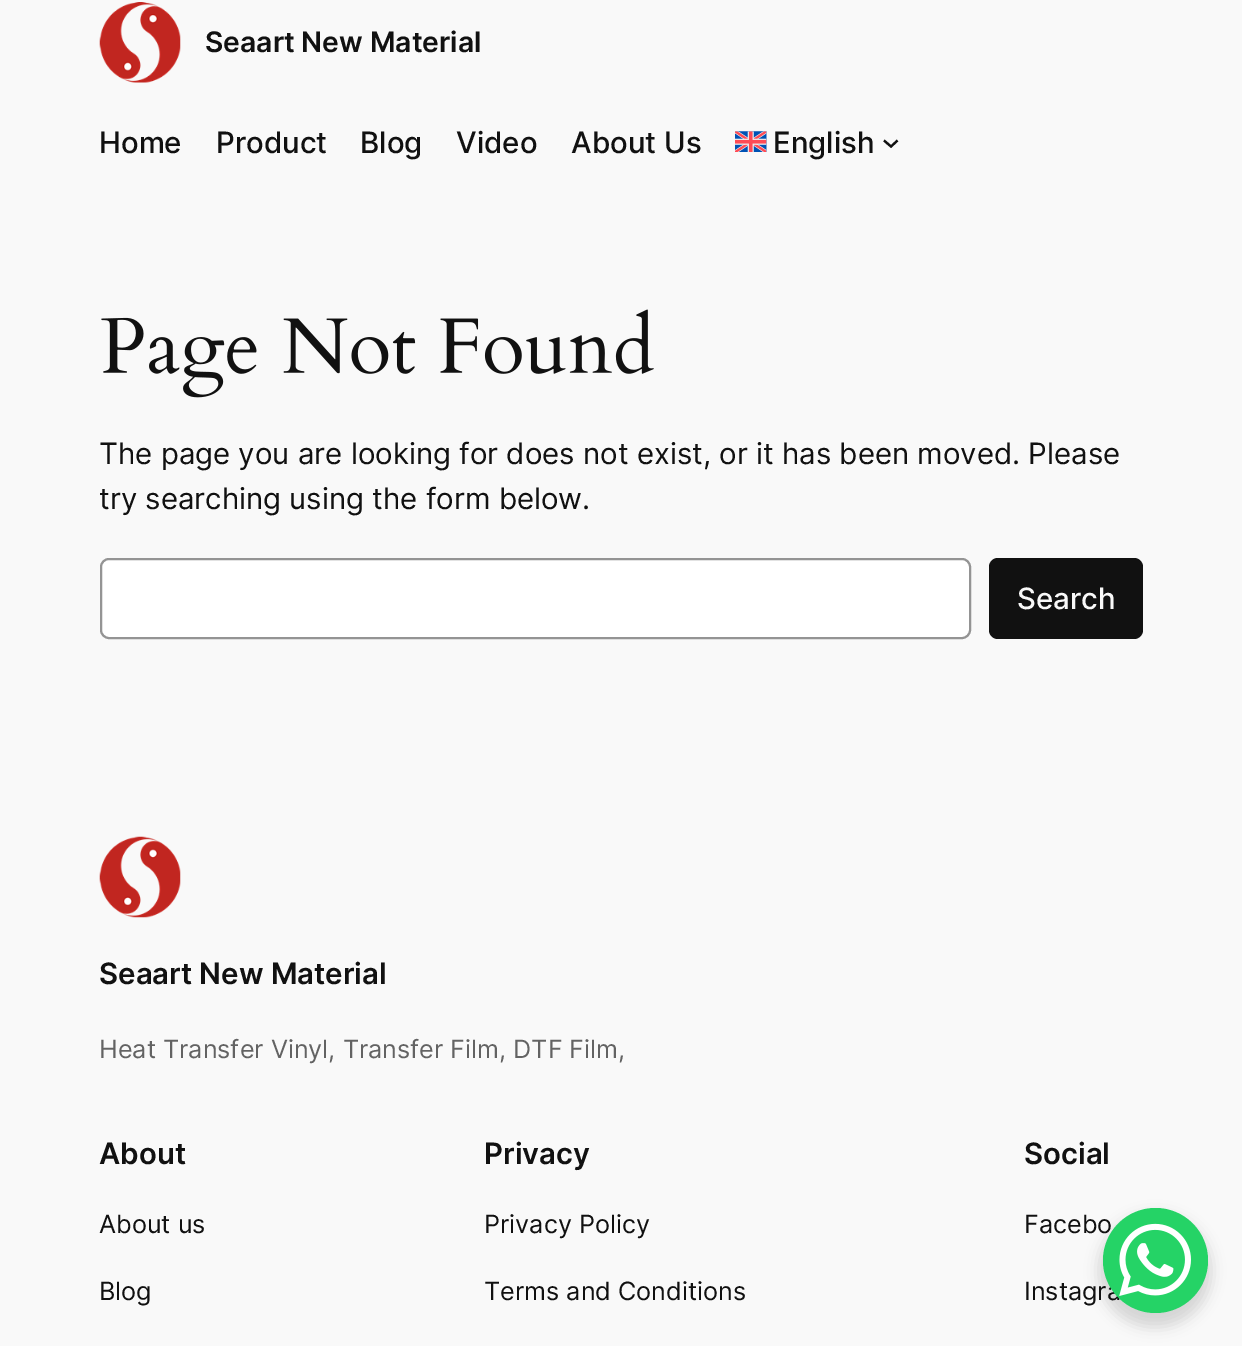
%!PS
<< /PageSize [1242 1346] /PageUsesTransparency true >> setpagedevice
/rgb { dup -16 bitshift 255 div exch dup -8 bitshift 255 and 255 div exch 255 and 255 div setrgbcolor } def
/font { [ exch dup neg 0 0 3 -1 roll 0 0 ] selectfont } def
/text { moveto show } def
/alpha { dup .setfillconstantalpha .setstrokeconstantalpha } def
/circle { newpath 0 360 arc closepath } def
/roundrect { 5 dict begin { /r /h /w /y /x } { exch def } forall
  x r add y moveto x w add y 2 copy h add r arct x w add y h add x 1 index r arct
  x y h add x y r arct x y 2 copy exch w add exch r arct closepath end } def
/shadow { 12 dict begin { /a /b /q /h /w /y /x } { exch def } forall gsave /was 0 def
  9 -2 -9 { dup b mul 4 div /e exch def 1 sub .425 mul 2.718 exch exp 1 add a .99 .min exch div /now exch def
    1 1 now sub 1 was sub div sub alpha /was now def
    w h .min e 2 mul add 0 gt { x e sub y e sub w e 2 mul add h e 2 mul add
      q e add b .6 mul add w h .min 2 div e add .min 0 .max roundrect fill } if } for grestore end } def
/picture { 5 dict begin { /h /w /y /x /name } { exch def } forall
  gsave x y translate w h scale
  w h 8 [w 0 0 h 0 0] name (r) file false 3 colorimage grestore end } def
0 .pushpdf14devicefilter
0 1346 translate 1 -1 scale
4 setmiterlimit
/s1 { /Inter-SemiBold 28.25 font 16#111111 rgb } def
/s2 { /Inter-Medium 29.4 font 16#111111 rgb } def
/s3 { /Inter-Regular 29.4 font 16#111111 rgb } def
/s4 { /Inter-Medium 29.4 font 16#F9F9F9 rgb } def
/s5 { /Inter-SemiBold 29.4 font 16#111111 rgb } def
/s6 { /Inter-Regular 25.2 font 16#636363 rgb } def
/s7 { /Inter-Regular 25.2 font 16#111111 rgb } def
16#F9F9F9 rgb
0 0 1242 1346 rectfill
(pic1.raw) 99 2 82 81 picture
s1
(Seaart New Material) 205 52 text
s2
(Home) 99 153 text
(Product) 216 153 text
(Blog) 360 153 text
(Video) 456 153 text
(About Us) 571 153 text
(pic2.raw) 735 131 32 21 picture
(English) 773 153 text
2.2 setlinewidth
884 140.5 moveto 891 146.5 lineto 897.5 140.5 lineto stroke
(pic3.raw) 101 309 553 89 picture
s3
(The page you are looking for does not exist, or it has been moved. Please) 99 464 text
(try searching using the form below.) 99 509 text
16#FFFFFF rgb
101 559 869 79 8 roundrect gsave fill grestore
16#949494 rgb
2 setlinewidth
stroke
16#111111 rgb
989 558 154 81 9 roundrect fill
s4
(Search) 1017 609 text
(pic4.raw) 99 836 82 82 picture
s5
(Seaart New Material) 99 984 text
s6
(Heat Transfer Vinyl, Transfer Film, DTF Film,) 99 1058 text
s5
(About) 99 1164 text
s7
(About us) 99 1233 text
(Blog) 99 1300 text
s5
(Privacy) 484 1164 text
s7
(Privacy Policy) 484 1233 text
(Terms and Conditions) 484 1300 text
s5
(Social) 1024 1164 text
s7
(Facebo) 1024 1233 text
(Instagra) 1024 1300 text
16#000000 rgb
1099 1215 112 112 56 7 0.15 shadow
16#25D366 rgb
1155.5 1260.5 52.5 circle fill
(pic5.raw) 1119 1223 72 73 picture
.poppdf14devicefilter showpage
